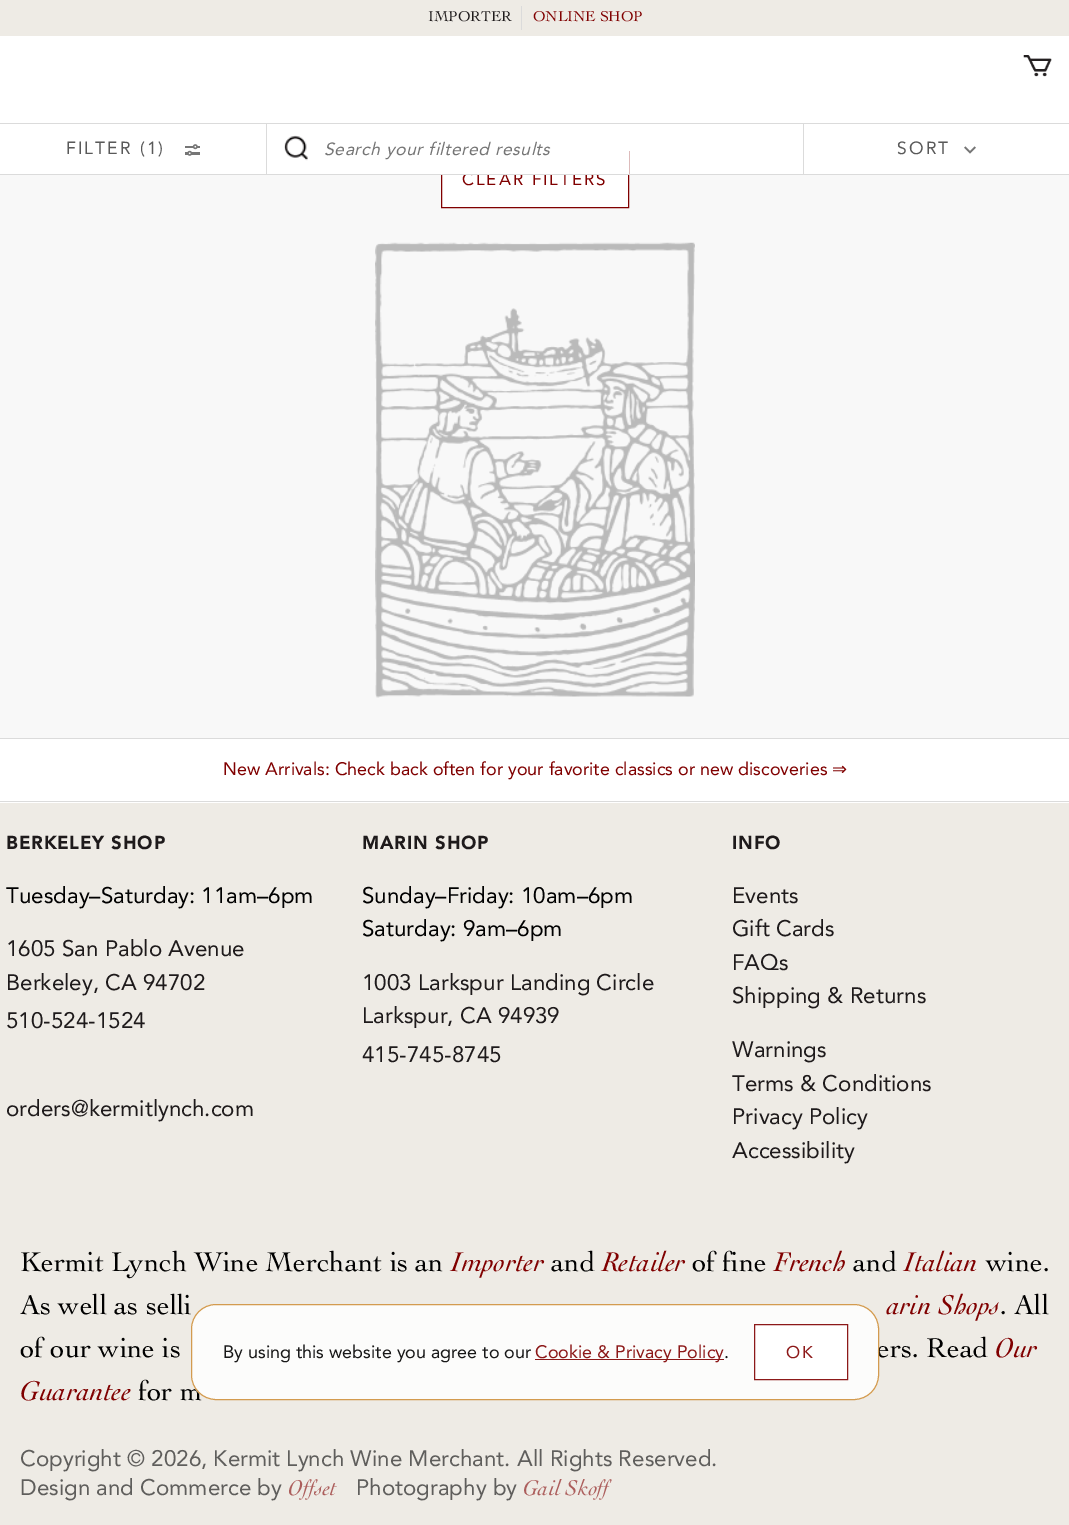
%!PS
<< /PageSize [1069 1525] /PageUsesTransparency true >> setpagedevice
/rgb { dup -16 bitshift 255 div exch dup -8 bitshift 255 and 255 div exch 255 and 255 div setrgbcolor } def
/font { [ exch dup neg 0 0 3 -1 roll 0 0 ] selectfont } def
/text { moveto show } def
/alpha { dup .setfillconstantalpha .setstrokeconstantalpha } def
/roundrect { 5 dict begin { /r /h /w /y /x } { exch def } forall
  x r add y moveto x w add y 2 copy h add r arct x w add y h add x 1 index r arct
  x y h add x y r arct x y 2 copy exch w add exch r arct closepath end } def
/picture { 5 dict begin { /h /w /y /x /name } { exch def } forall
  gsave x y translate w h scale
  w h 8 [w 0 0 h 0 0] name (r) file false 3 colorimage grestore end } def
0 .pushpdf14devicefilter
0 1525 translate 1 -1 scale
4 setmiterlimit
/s1 { /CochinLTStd-Regular 15 font 16#1E1A1B rgb } def
/s2 { /CochinLTStd-Regular 15 font 16#800000 rgb } def
/s3 { /Avenir-Regular 17.95 font 16#800000 rgb } def
/s4 { /DejaVuSans-Regular 17.95 font 16#800000 rgb } def
/s5 { /Avenir-Regular 22.4 font 16#000000 rgb } def
/s6 { /Avenir-Regular 22.4 font 16#1E1A1B rgb } def
/s7 { /CochinLTStd-Regular 28.6 font 16#000000 rgb } def
/s8 { /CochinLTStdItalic-Regular 28.6 font 16#800000 rgb } def
/s9 { /Avenir-Regular 22.4 font 16#5F5E5C rgb } def
/s10 { /CochinLTStdItalic-Regular 22.4 font 16#AC5E5C rgb } def
/s11 { /Avenir-Regular 17.95 font 16#181818 rgb } def
/s12 { /Avenir-Regular 17.95 font 16#8C1818 rgb } def
16#FFFFFF rgb
0 0 1069 1525 rectfill
16#DBDBDB rgb
0 123 1069 1 rectfill
16#EEEBE5 rgb
0 0 1069 36 rectfill
s1
(IMPORTER) 428 21 text
16#DBDBDB rgb
521 6 1 24 rectfill
s2
(ONLINE SHOP) 533 21 text
(pic1.raw) 1023 55 29 22 picture
16#F8F8F8 rgb
0 175 1069 563 rectfill
16#FFFFFF rgb
442 175 186 32 rectfill
16#800000 rgb
441.5 151.5 187 56 rectstroke
/Avenir-Regular 17 font
462 185 moveto 2 0 (CLEAR FILTERS) ashow
16#FFFFFF rgb
441 151 188 23 rectfill
16#DBDBDB rgb
266 124 1 51 rectfill
0 174 1069 1 rectfill
/Avenir-Regular 17.5 font
16#595959 rgb
66 154 moveto 2.1 0 (FILTER \(1\)) ashow
(pic2.raw) 185 144 15 12 picture
(pic3.raw) 284 135 24 26 picture
/Avenir-Italic 17.5 font
16#757575 rgb
324 155 moveto 0.6 0 (Search your filtered results) ashow
16#DBDBDB rgb
803 124 1 51 rectfill
/Avenir-Regular 17.5 font
16#595959 rgb
897 154 moveto 2.1 0 (SORT) ashow
(pic4.raw) 964 146 12 8 picture
(pic5.raw) 375 242 320 456 picture
16#DBDBDB rgb
0 738 1069 1 rectfill
0 801 1069 1 rectfill
s3
(New Arrivals: Check back often for your favorite classics or new discoveries) 223 775 text
s4
(⇒) 832 775 text
16#EEEBE5 rgb
0 803 1069 722 rectfill
/Avenir-Bold 17.95 font
16#1E1A1B rgb
6 849 moveto 1.25 0 (BERKELEY SHOP) ashow
s5
(Tuesday–Saturday: 11am–6pm) 6 903 text
s6
(1605 San Pablo Avenue) 6 956 text
(Berkeley, CA 94702) 6 990 text
(510-524-1524) 6 1028 text
/Avenir-Bold 17.95 font
362 849 moveto 1.25 0 (MARIN SHOP) ashow
s5
(Sunday–Friday: 10am–6pm) 362 903 text
(Saturday: 9am–6pm) 362 936 text
s6
(1003 Larkspur Landing Circle) 362 990 text
(Larkspur, CA 94939) 362 1023 text
(415-745-8745) 362 1062 text
(orders@kermitlynch.com) 6 1116 text
/Avenir-Bold 17.95 font
732 849 moveto 1.25 0 (INFO) ashow
s6
(Events) 732 903 text
(Gift Cards) 732 936 text
(FAQs) 732 970 text
(Shipping & Returns) 732 1003 text
(Warnings) 732 1057 text
(Terms & Conditions) 732 1091 text
(Privacy Policy) 732 1124 text
(Accessibility) 732 1158 text
s7
(Kermit Lynch Wine Merchant is an) 20 1271 text
s8
(Importer) 451 1271 text
s7
(and) 551 1271 text
s8
(Retailer) 602 1271 text
s7
(of fine) 692 1271 text
s8
(French) 774 1271 text
s7
(and) 853 1271 text
s8
(Italian) 904 1271 text
s7
(wine.) 986 1271 text
(As well as selli) 20 1314 text
s8
(arin Shops) 887 1314 text
s7
(. All) 1000 1314 text
(of our wine is) 20 1357 text
(ers. Read) 877 1357 text
s8
(Our) 995 1357 text
(Guarantee) 20 1400 text
s7
(for m) 138 1400 text
s9
(Copyright © 2026, Kermit Lynch Wine Merchant. All Rights Reserved.) 20 1466 text
(Design and Commerce by) 20 1495 text
s10
(Offset) 288 1495 text
s9
(Photography by) 356 1495 text
s10
(Gail Skoff) 523 1495 text
0.85 alpha
16#FFFFFF rgb
191 1304 688 96 25 roundrect fill
0.9 alpha
16#CE903C rgb
191.5 1304.5 687 95 24.5 roundrect stroke
1 alpha
s11
(By using this website you agree to our) 223 1358 text
0.9 alpha
16#800000 rgb
535 1359 189 1 rectfill
1 alpha
s12
(Cookie & Privacy Policy) 535 1358 text
s11
(.) 724 1358 text
0.9 alpha
16#FFFFFF rgb
754 1324 94 56 rectfill
16#800000 rgb
754.5 1324.5 93 55 rectstroke
/Avenir-Regular 17 font
1 alpha
16#8C1818 rgb
786 1358 moveto 2 0 (OK) ashow
.poppdf14devicefilter showpage
